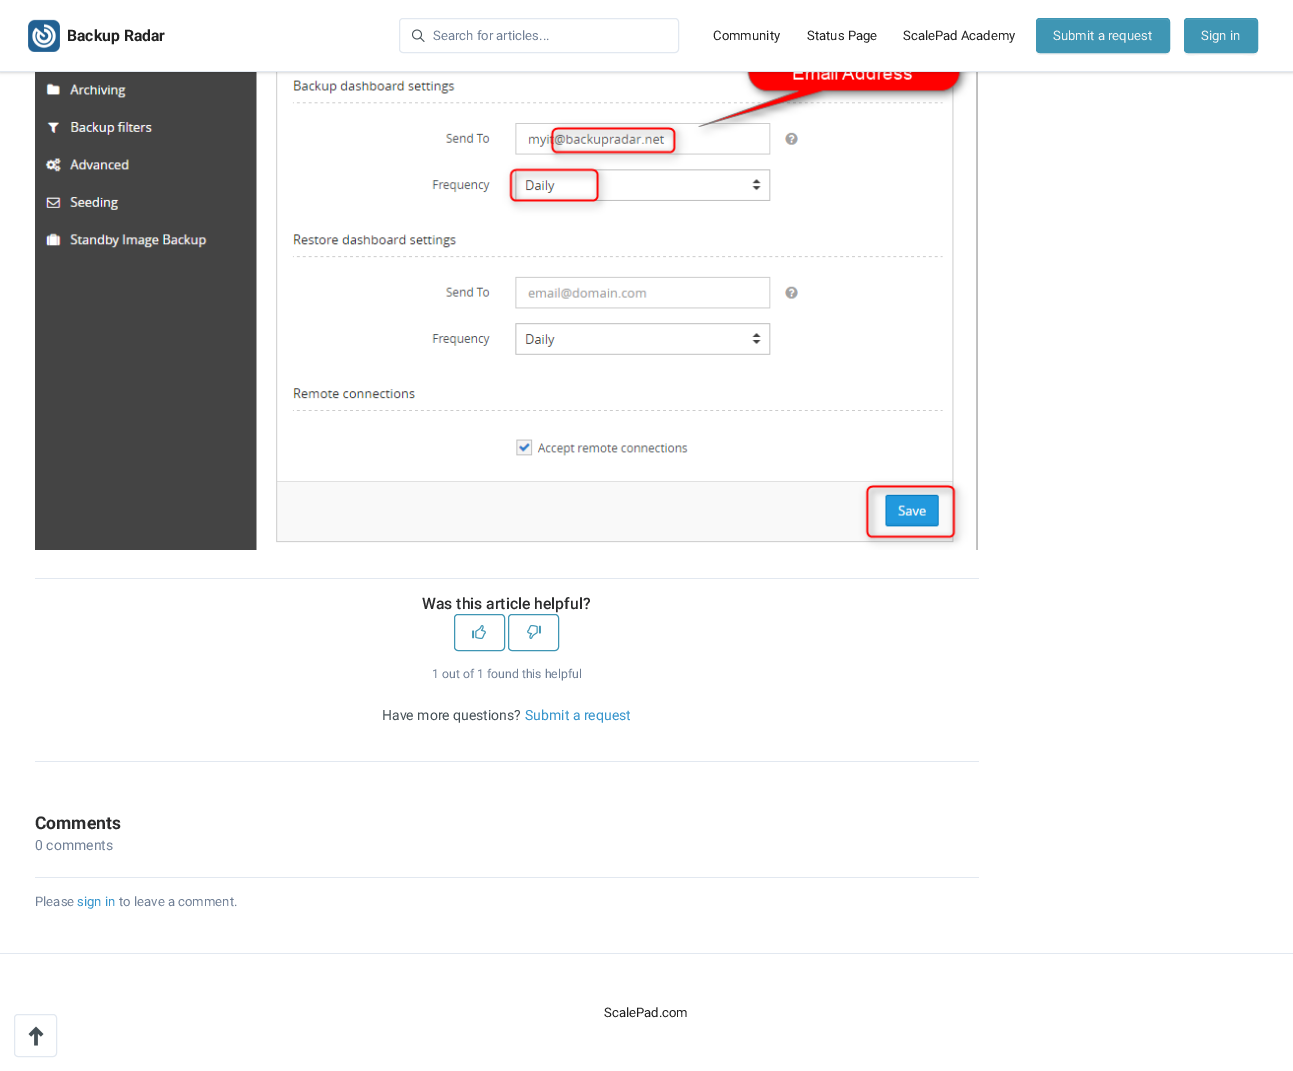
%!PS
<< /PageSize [1293 1071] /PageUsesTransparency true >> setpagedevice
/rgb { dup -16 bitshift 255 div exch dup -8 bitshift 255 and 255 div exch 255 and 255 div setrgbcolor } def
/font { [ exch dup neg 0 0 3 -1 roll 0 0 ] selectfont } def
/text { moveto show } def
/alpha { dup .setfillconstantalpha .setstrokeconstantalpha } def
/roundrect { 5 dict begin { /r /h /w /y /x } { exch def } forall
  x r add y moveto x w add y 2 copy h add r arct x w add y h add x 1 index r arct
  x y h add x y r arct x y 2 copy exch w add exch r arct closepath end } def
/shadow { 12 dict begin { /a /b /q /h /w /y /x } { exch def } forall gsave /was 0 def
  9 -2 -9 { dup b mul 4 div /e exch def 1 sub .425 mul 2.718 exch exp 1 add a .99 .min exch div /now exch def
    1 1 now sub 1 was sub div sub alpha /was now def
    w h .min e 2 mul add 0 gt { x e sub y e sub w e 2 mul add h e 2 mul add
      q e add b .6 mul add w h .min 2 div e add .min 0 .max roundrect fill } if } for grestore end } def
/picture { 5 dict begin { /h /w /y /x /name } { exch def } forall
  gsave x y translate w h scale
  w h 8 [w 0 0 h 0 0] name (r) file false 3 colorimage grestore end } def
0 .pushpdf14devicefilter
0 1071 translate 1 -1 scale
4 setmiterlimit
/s1 { /Roboto-Bold 15.75 font 16#212121 rgb } def
/s2 { /Roboto-Regular 13.1 font 16#718096 rgb } def
/s3 { /Roboto-Regular 13.1 font 16#212121 rgb } def
/s4 { /Roboto-Regular 13.1 font 16#F5F5F5 rgb } def
/s5 { /Roboto-Medium 15.75 font 16#2B2C2D rgb } def
/s6 { /Roboto-Regular 12.25 font 16#718096 rgb } def
/s7 { /Roboto-Regular 14 font 16#455056 rgb } def
/s8 { /Roboto-Regular 14 font 16#3594CC rgb } def
/s9 { /Roboto-Bold 17.5 font 16#2B2C2D rgb } def
/s10 { /Roboto-Regular 14 font 16#718096 rgb } def
/s11 { /Roboto-Regular 13.1 font 16#3594CC rgb } def
16#FFFFFF rgb
0 0 1293 1071 rectfill
(pic3.raw) 35 72 943 478 picture
16#000000 rgb
0 1 1293 72 0 1 0.06 shadow
0 1 1293 72 0 1.5 0.1 shadow
16#FFFFFF rgb
0 0 1293 71 rectfill
16#E2E8F0 rgb
0 71 1293 1 rectfill
(pic1.raw) 28 19 32 33 picture
s1
(Backup Radar) 67 41 text
16#E2E8F0 rgb
399.5 18.5 279 34 3.5 roundrect stroke
(pic2.raw) 412 29 13 13 picture
s2
(Search for articles...) 433 40 text
s3
(Community) 713 40 text
(Status Page) 807 40 text
(ScalePad Academy) 903 40 text
16#F2F2F2 rgb
1036 49 moveto 1036 51 lineto 1036 53 1038 55 1040 55 curveto 1166 55 lineto 1168 55 1170 53 1170 51 curveto 1170 49 lineto 1170 51 1168 53 1166 53 curveto 1040 53 lineto 1038 53 1036 51 1036 49 curveto closepath fill
16#3F96B4 rgb
1036 18 134 35 4 roundrect fill
16#52A1BC rgb
1040 20 moveto 1166 20 lineto 1168 20 1169 21 1169 23 curveto 1169 21 1169 19 1167 19 curveto 1039 19 lineto 1037 19 1037 21 1037 23 curveto 1037 21 1038 20 1040 20 curveto closepath fill
16#3F96B4 rgb
1036.5 18.5 133 34 3.5 roundrect stroke
s4
(Submit a request) 1053 40 text
16#F2F2F2 rgb
1184 49 moveto 1184 58 1191 55 1199 55 curveto 1243 55 lineto 1251 55 1258 58 1258 49 curveto 1258 51 1256 53 1254 53 curveto 1188 53 lineto 1186 53 1184 51 1184 49 curveto closepath fill
16#3F96B4 rgb
1184 18 74 35 4 roundrect fill
16#52A1BC rgb
1188 20 moveto 1254 20 lineto 1256 20 1257 21 1257 23 curveto 1257 16 1247 19 1243 19 curveto 1199 19 lineto 1195 19 1185 16 1185 23 curveto 1185 21 1186 20 1188 20 curveto closepath fill
16#3F96B4 rgb
1184.5 18.5 73 34 3.5 roundrect stroke
s4
(Sign in) 1201 40 text
16#E2E8F0 rgb
35 578 944 1 rectfill
35 761 944 1 rectfill
s5
(Was this article helpful?) 422 609 text
16#3F96B4 rgb
454.5 614.5 50 36 3.5 roundrect stroke
(pic4.raw) 472 625 14 14 picture
508.5 614.5 50 36 3.5 roundrect stroke
(pic5.raw) 527 625 14 14 picture
s6
(1 out of 1 found this helpful) 432 678 text
s7
(Have more questions?) 382 720 text
s8
(Submit a request) 525 720 text
16#E2E8F0 rgb
35 877 944 1 rectfill
s9
(Comments) 35 829 text
s10
(0 comments) 35 850 text
s2
(Please) 35 906 text
s11
(sign in) 77 906 text
s2
(to leave a comment.) 119 906 text
16#E2E8F0 rgb
0 953 1293 1 rectfill
s3
(ScalePad.com) 604 1017 text
16#E2E8F0 rgb
14.5 1014.5 42 42 3.5 roundrect stroke
(pic6.raw) 28 1026 16 20 picture
.poppdf14devicefilter showpage
